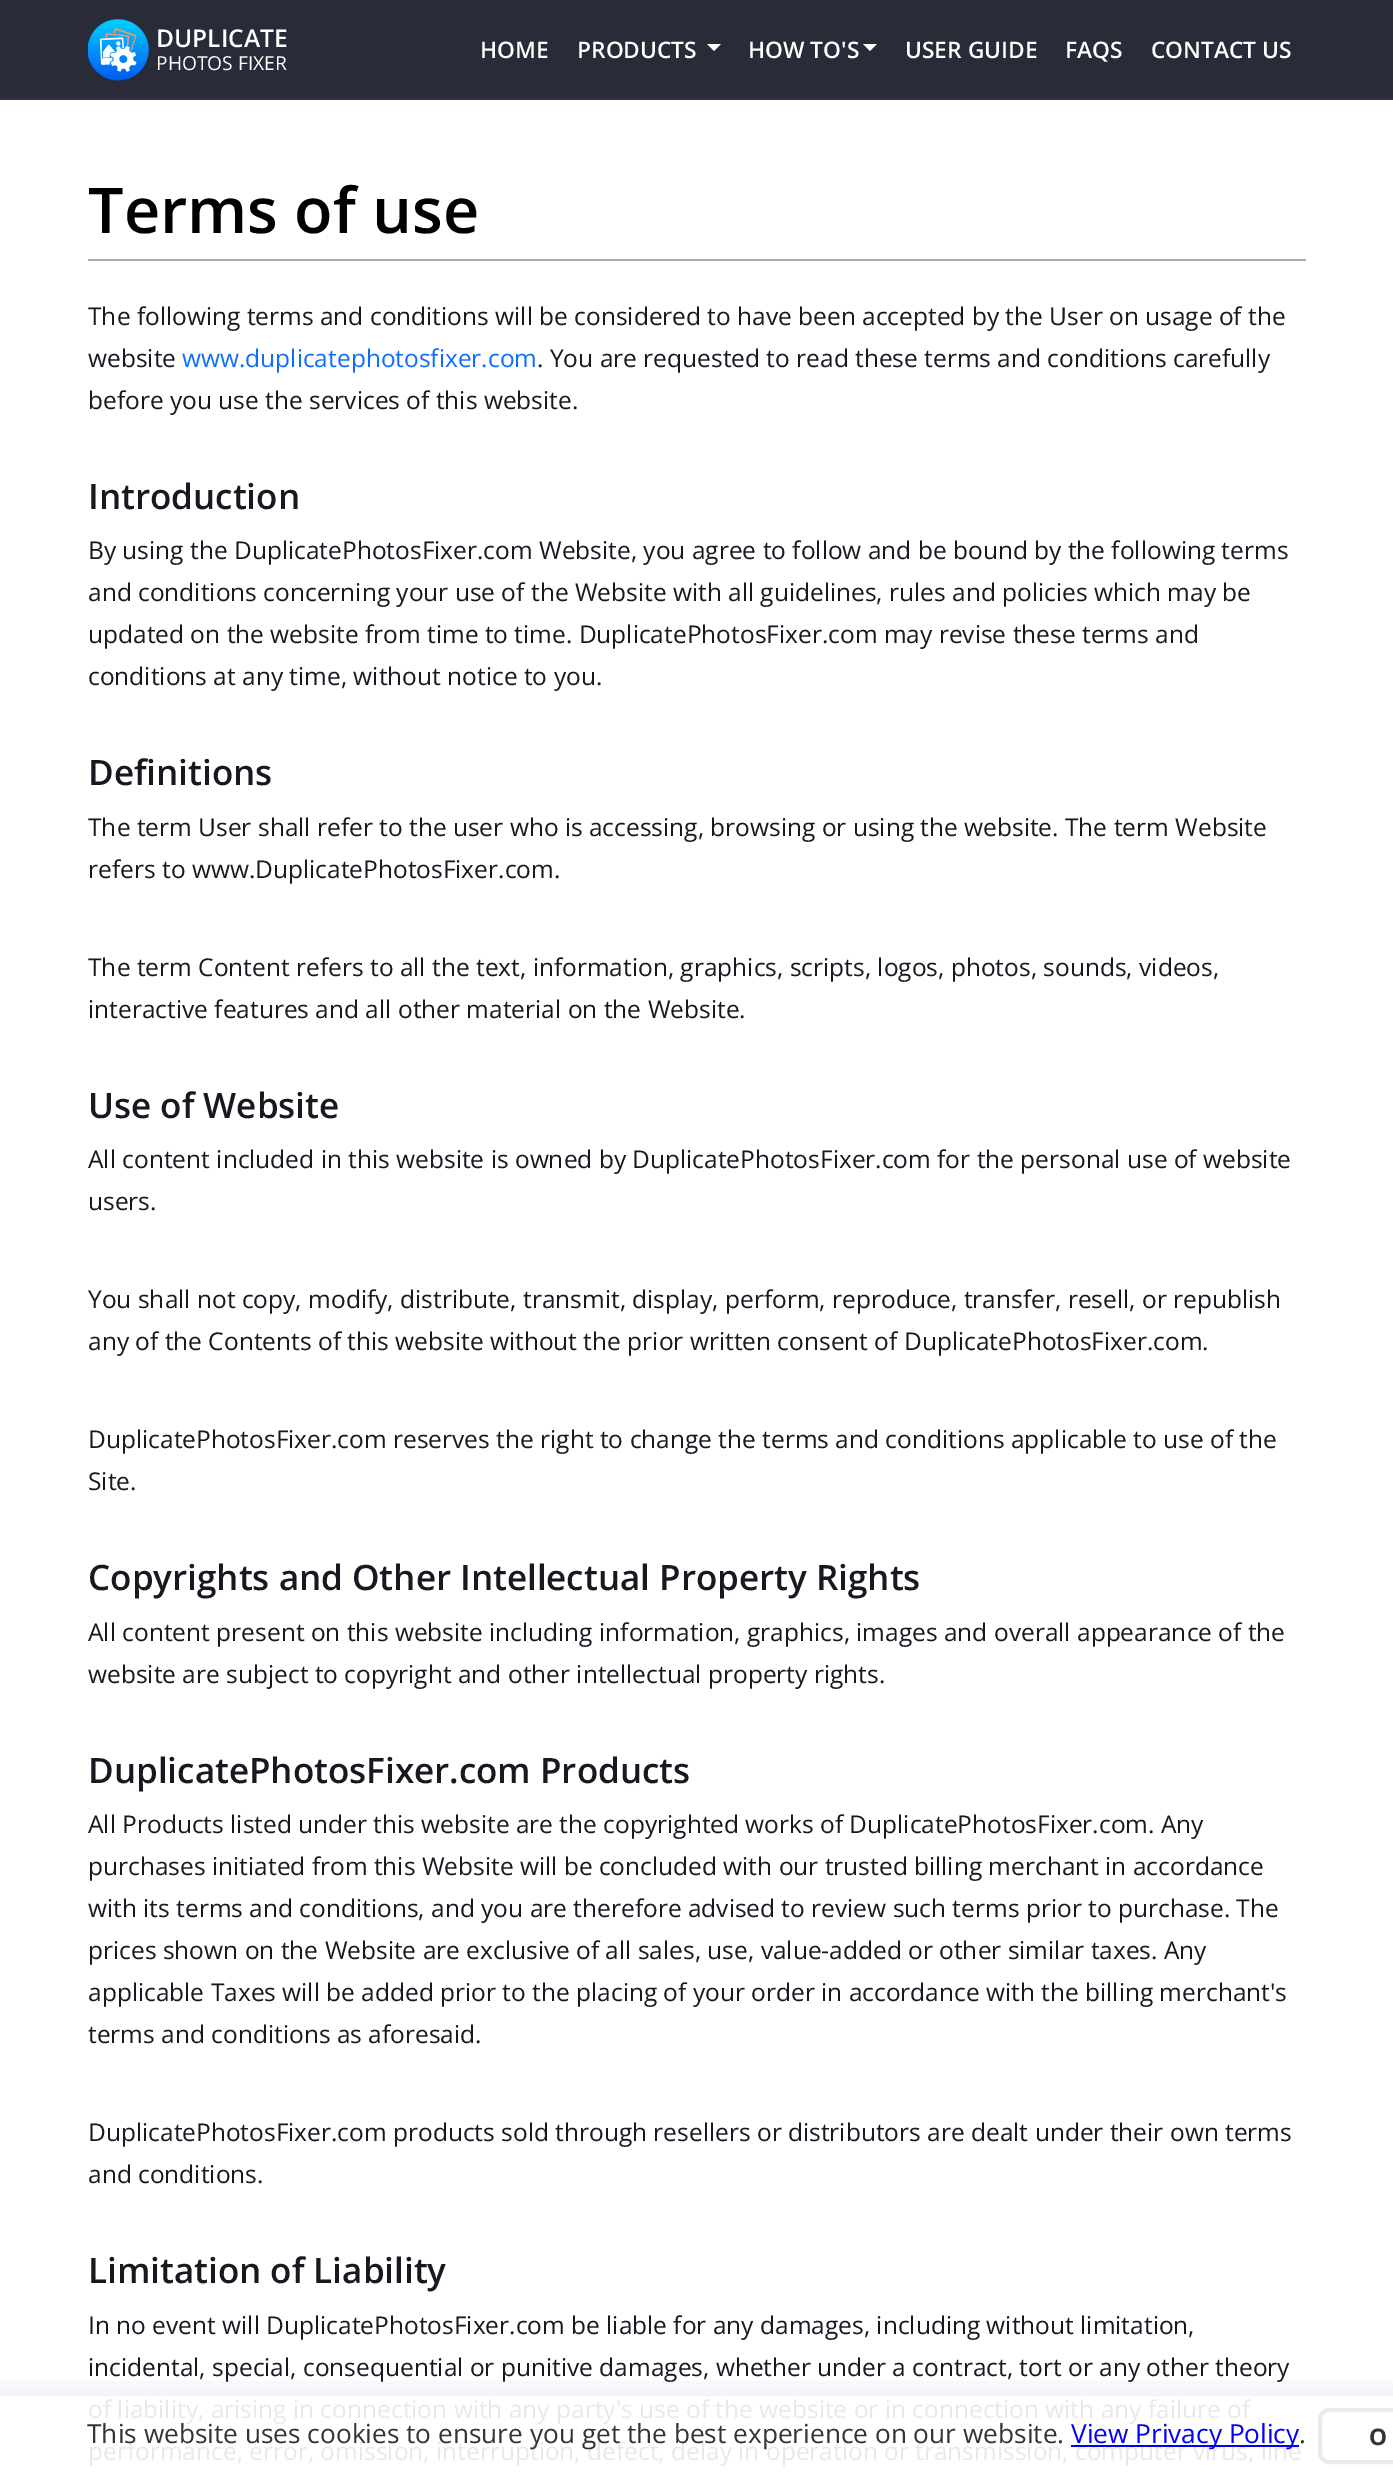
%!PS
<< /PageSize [1393 2475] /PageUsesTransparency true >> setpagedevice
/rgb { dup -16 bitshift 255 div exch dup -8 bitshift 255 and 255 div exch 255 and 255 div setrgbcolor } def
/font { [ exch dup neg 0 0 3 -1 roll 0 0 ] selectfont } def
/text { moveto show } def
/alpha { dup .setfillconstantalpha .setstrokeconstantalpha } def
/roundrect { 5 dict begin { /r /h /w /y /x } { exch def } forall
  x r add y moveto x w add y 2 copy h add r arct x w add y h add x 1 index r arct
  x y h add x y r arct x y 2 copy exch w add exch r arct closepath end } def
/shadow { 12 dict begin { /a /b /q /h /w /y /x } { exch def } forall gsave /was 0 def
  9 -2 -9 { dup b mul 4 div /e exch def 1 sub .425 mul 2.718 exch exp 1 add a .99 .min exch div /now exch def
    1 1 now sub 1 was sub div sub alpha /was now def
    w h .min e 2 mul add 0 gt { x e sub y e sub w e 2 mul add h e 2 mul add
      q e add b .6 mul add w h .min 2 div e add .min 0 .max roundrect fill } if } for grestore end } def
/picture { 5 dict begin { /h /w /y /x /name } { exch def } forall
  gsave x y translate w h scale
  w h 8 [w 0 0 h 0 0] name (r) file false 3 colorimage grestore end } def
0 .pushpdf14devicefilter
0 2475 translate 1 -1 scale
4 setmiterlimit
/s1 { /OpenSans-SemiBold 24.5 font 16#FFFFFF rgb } def
/s2 { /OpenSans-Regular 19.25 font 16#FFFFFF rgb } def
/s3 { /OpenSans-SemiBold 22.75 font 16#FFFFFF rgb } def
/s4 { /OpenSans-SemiBold 63 font 16#000000 rgb } def
/s5 { /OpenSans-Regular 24.5 font 16#171920 rgb } def
/s6 { /OpenSans-Regular 24.5 font 16#0D6EFD rgb } def
/s7 { /OpenSans-SemiBold 35 font 16#171920 rgb } def
/s8 { /OpenSans-Regular 24.5 font 16#E8E8E9 rgb } def
/s9 { /OpenSans-Regular 26.25 font 16#333333 rgb } def
/s10 { /OpenSans-Regular 26.25 font 16#0000FF rgb } def
/s11 { /OpenSans-Bold 22.75 font 16#333333 rgb } def
16#FFFFFF rgb
0 0 1393 2475 rectfill
16#292B38 rgb
0 0 1393 98 rectfill
16#323444 rgb
0 98 1393 2 rectfill
(pic1.raw) 88 19 61 62 picture
s1
(DUPLICATE) 156 47 text
s2
(PHOTOS FIXER) 156 70 text
s3
(HOME) 480 58 text
(PRODUCTS) 577 58 text
707 44 moveto 721 44 lineto 714 51 lineto closepath fill
(HOW TO'S) 748 58 text
863 44 moveto 877 44 lineto 870 51 lineto closepath fill
(USER GUIDE) 905 58 text
(FAQS) 1065 58 text
(CONTACT US) 1151 58 text
16#ABABAB rgb
88 259 1218 2 rectfill
s4
(Terms of use) 88 233 text
s5
(The following terms and conditions will be considered to have been accepted by the User on usage of the) 88 325 text
(website) 88 367 text
s6
(www.duplicatephotosfixer.com) 182 367 text
s5
(. You are requested to read these terms and conditions carefully) 537 367 text
(before you use the services of this website.) 88 409 text
s7
(Introduction) 88 509 text
s5
(By using the DuplicatePhotosFixer.com Website, you agree to follow and be bound by the following terms) 88 559 text
(and conditions concerning your use of the Website with all guidelines, rules and policies which may be) 88 601 text
(updated on the website from time to time. DuplicatePhotosFixer.com may revise these terms and) 88 643 text
(conditions at any time, without notice to you.) 88 685 text
s7
(Definitions) 88 785 text
s5
(The term User shall refer to the user who is accessing, browsing or using the website. The term Website) 88 836 text
(refers to www.DuplicatePhotosFixer.com.) 88 878 text
(The term Content refers to all the text, information, graphics, scripts, logos, photos, sounds, videos,) 88 976 text
(interactive features and all other material on the Website.) 88 1018 text
s7
(Use of Website) 88 1118 text
s5
(All content included in this website is owned by DuplicatePhotosFixer.com for the personal use of website) 88 1168 text
(users.) 88 1210 text
(You shall not copy, modify, distribute, transmit, display, perform, reproduce, transfer, resell, or republish) 88 1308 text
(any of the Contents of this website without the prior written consent of DuplicatePhotosFixer.com.) 88 1350 text
(DuplicatePhotosFixer.com reserves the right to change the terms and conditions applicable to use of the) 88 1448 text
(Site.) 88 1490 text
s7
(Copyrights and Other Intellectual Property Rights) 88 1590 text
s5
(All content present on this website including information, graphics, images and overall appearance of the) 88 1641 text
(website are subject to copyright and other intellectual property rights.) 88 1683 text
s7
(DuplicatePhotosFixer.com Products) 88 1783 text
s5
(All Products listed under this website are the copyrighted works of DuplicatePhotosFixer.com. Any) 88 1833 text
(purchases initiated from this Website will be concluded with our trusted billing merchant in accordance) 88 1875 text
(with its terms and conditions, and you are therefore advised to review such terms prior to purchase. The) 88 1917 text
(prices shown on the Website are exclusive of all sales, use, value-added or other similar taxes. Any) 88 1959 text
(applicable Taxes will be added prior to the placing of your order in accordance with the billing merchant's) 88 2001 text
(terms and conditions as aforesaid.) 88 2043 text
(DuplicatePhotosFixer.com products sold through resellers or distributors are dealt under their own terms) 88 2141 text
(and conditions.) 88 2183 text
s7
(Limitation of Liability) 88 2283 text
s5
(In no event will DuplicatePhotosFixer.com be liable for any damages, including without limitation,) 88 2334 text
(incidental, special, consequential or punitive damages, whether under a contract, tort or any other theory) 88 2376 text
s8
(of liability, arising in connection with any party's use of the website or in connection with any failure of) 88 2418 text
(performance, error, omission, interruption, defect, delay in operation or transmission, computer virus, line) 88 2460 text
gsave
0 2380 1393 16 rectclip
16#1422B4 rgb
0 2392 1393 81 0 14 0.1 shadow
grestore
s9
(This website uses cookies to ensure you get the best experience on our website.) 87 2443 text
16#0000FF rgb
1071 2445 228 2 rectfill
(View Privacy Policy) 1071 2443 text
s9
(.) 1299 2443 text
16#EAEAEA rgb
4 setlinewidth
1320 2410 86 52 9 roundrect stroke
s11
(O) 1369 2445 text
.poppdf14devicefilter showpage
